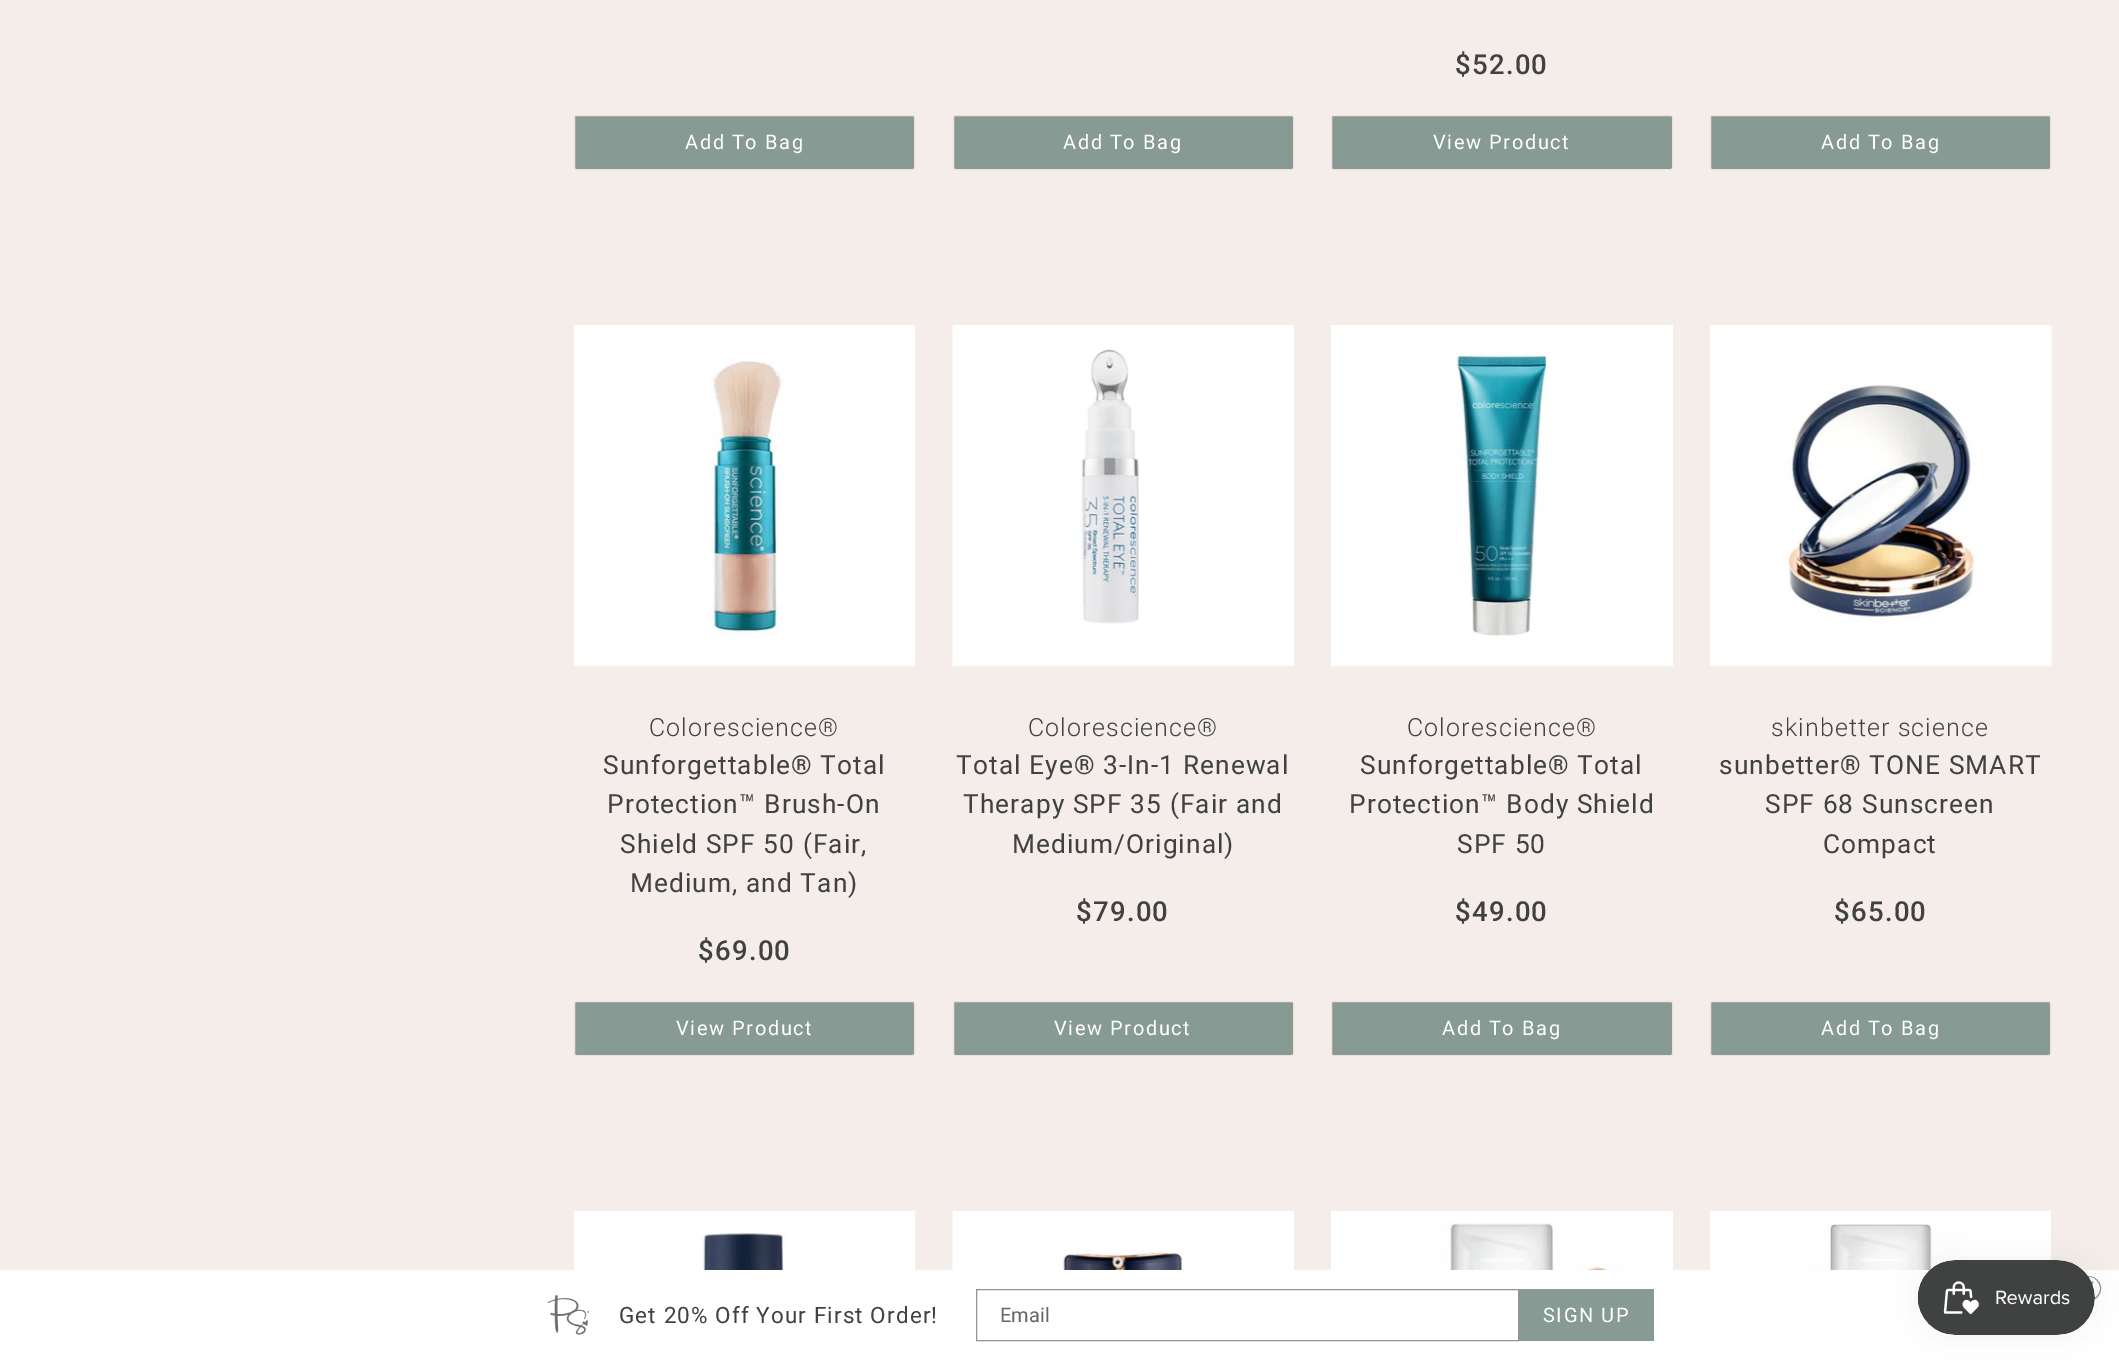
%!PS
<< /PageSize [2119 1360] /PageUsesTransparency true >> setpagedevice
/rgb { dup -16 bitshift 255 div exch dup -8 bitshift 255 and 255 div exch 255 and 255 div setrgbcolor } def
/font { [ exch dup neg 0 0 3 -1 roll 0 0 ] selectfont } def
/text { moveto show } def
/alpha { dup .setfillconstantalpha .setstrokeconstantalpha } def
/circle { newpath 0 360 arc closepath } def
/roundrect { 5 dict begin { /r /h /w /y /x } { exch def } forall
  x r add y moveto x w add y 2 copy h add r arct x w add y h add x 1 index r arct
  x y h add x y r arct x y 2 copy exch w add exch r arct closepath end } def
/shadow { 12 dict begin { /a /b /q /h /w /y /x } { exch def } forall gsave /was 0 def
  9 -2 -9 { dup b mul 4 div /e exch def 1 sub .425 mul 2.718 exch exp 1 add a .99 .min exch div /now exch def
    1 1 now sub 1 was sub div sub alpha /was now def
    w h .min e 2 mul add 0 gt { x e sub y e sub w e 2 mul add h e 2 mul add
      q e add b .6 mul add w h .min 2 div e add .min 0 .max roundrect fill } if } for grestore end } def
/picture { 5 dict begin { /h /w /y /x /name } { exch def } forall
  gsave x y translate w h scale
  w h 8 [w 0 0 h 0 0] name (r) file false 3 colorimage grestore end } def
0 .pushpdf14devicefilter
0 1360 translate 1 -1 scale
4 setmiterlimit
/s1 { /Roboto-Regular 20 font 16#666666 rgb } def
16#F4EDE9 rgb
0 0 2119 1360 rectfill
16#879A94 rgb
574.5 115.5 340 54 2 roundrect gsave fill grestore
16#F0E0D8 rgb
stroke
/Roboto-Regular 20 font
16#FFFFFF rgb
685 149 moveto 1.6 0 (Add To Bag) ashow
16#879A94 rgb
953.5 115.5 340 54 2 roundrect gsave fill grestore
16#F0E0D8 rgb
stroke
16#FFFFFF rgb
1063 149 moveto 1.6 0 (Add To Bag) ashow
/Roboto-Medium 27.5 font
16#3F4241 rgb
1455 74 moveto 1.25 0 ($52.00) ashow
16#879A94 rgb
1331.5 115.5 341 54 2 roundrect gsave fill grestore
16#F0E0D8 rgb
stroke
/Roboto-Regular 20 font
16#FFFFFF rgb
1433 149 moveto 1.6 0 (View Product) ashow
16#879A94 rgb
1710.5 115.5 340 54 2 roundrect gsave fill grestore
16#F0E0D8 rgb
stroke
16#FFFFFF rgb
1821 149 moveto 1.6 0 (Add To Bag) ashow
(pic1.raw) 574 325 342 342 picture
/Roboto-Light 25 font
16#3F4241 rgb
649 736 moveto 1.1 0 (Colorescience®) ashow
/Roboto-Regular 26.25 font
603 774 moveto 1.1 0 (Sunforgettable® Total) ashow
607 813 moveto 1.1 0 (Protection™ Brush-On) ashow
620 853 moveto 1.1 0 (Shield SPF 50 \(Fair,) ashow
630 892 moveto 1.1 0 (Medium, and Tan\)) ashow
/Roboto-Medium 27.5 font
698 960 moveto 1.25 0 ($69.00) ashow
16#879A94 rgb
574.5 1001.5 340 54 2 roundrect gsave fill grestore
16#F0E0D8 rgb
stroke
/Roboto-Regular 20 font
16#FFFFFF rgb
676 1035 moveto 1.6 0 (View Product) ashow
(pic2.raw) 952 325 342 342 picture
/Roboto-Light 25 font
16#3F4241 rgb
1028 736 moveto 1.1 0 (Colorescience®) ashow
/Roboto-Regular 26.25 font
956 774 moveto 1.1 0 (Total Eye® 3-In-1 Renewal) ashow
963 813 moveto 1.1 0 (Therapy SPF 35 \(Fair and) ashow
1012 853 moveto 1.1 0 (Medium/Original\)) ashow
/Roboto-Medium 27.5 font
1076 921 moveto 1.25 0 ($79.00) ashow
16#879A94 rgb
953.5 1001.5 340 54 2 roundrect gsave fill grestore
16#F0E0D8 rgb
stroke
/Roboto-Regular 20 font
16#FFFFFF rgb
1054 1035 moveto 1.6 0 (View Product) ashow
1331 325 342 341 rectfill
(pic3.raw) 1332 352 340 315 picture
/Roboto-Light 25 font
16#3F4241 rgb
1407 736 moveto 1.1 0 (Colorescience®) ashow
/Roboto-Regular 26.25 font
1360 774 moveto 1.1 0 (Sunforgettable® Total) ashow
1349 813 moveto 1.1 0 (Protection™ Body Shield) ashow
1457 853 moveto 1.1 0 (SPF 50) ashow
/Roboto-Medium 27.5 font
1455 921 moveto 1.25 0 ($49.00) ashow
16#879A94 rgb
1331.5 1001.5 341 54 2 roundrect gsave fill grestore
16#F0E0D8 rgb
stroke
/Roboto-Regular 20 font
16#FFFFFF rgb
1442 1035 moveto 1.6 0 (Add To Bag) ashow
(pic4.raw) 1709 325 343 342 picture
/Roboto-Light 25 font
16#3F4241 rgb
1771 736 moveto 1.1 0 (skinbetter science) ashow
/Roboto-Regular 26.25 font
1719 774 moveto 1.1 0 (sunbetter® TONE SMART) ashow
1765 813 moveto 1.1 0 (SPF 68 Sunscreen) ashow
1823 853 moveto 1.1 0 (Compact) ashow
/Roboto-Medium 27.5 font
1834 921 moveto 1.25 0 ($65.00) ashow
16#879A94 rgb
1710.5 1001.5 340 54 2 roundrect gsave fill grestore
16#F0E0D8 rgb
stroke
/Roboto-Regular 20 font
16#FFFFFF rgb
1821 1035 moveto 1.6 0 (Add To Bag) ashow
574 1211 341 59 rectfill
(pic5.raw) 699 1211 217 59 picture
(pic6.raw) 952 1211 235 59 picture
1187 1211 107 59 rectfill
1331 1211 342 59 rectfill
(pic7.raw) 1401 1223 235 47 picture
1710 1211 341 59 rectfill
(pic8.raw) 1749 1224 214 46 picture
0 1270 2119 90 rectfill
16#879A94 rgb
2088.5 1288.5 12 circle stroke
(pic9.raw) 547 1295 43 40 picture
/Roboto-Regular 22.5 font
16#3F4241 rgb
619 1323 moveto 1.1 0 (Get 20% Off Your First Order!) ashow
16#949494 rgb
976.5 1289.5 542 51 rectstroke
s1
(Email) 1000 1322 text
16#879A94 rgb
1519 1289 135 52 rectfill
16#FFFFFF rgb
1543 1322 moveto 1.6 0 (SIGN UP) ashow
16#000000 rgb
1918 1260 177 75 37.5 15.5 0.05 shadow
(pic10.raw) 1917 1260 178 75 picture
.poppdf14devicefilter showpage
